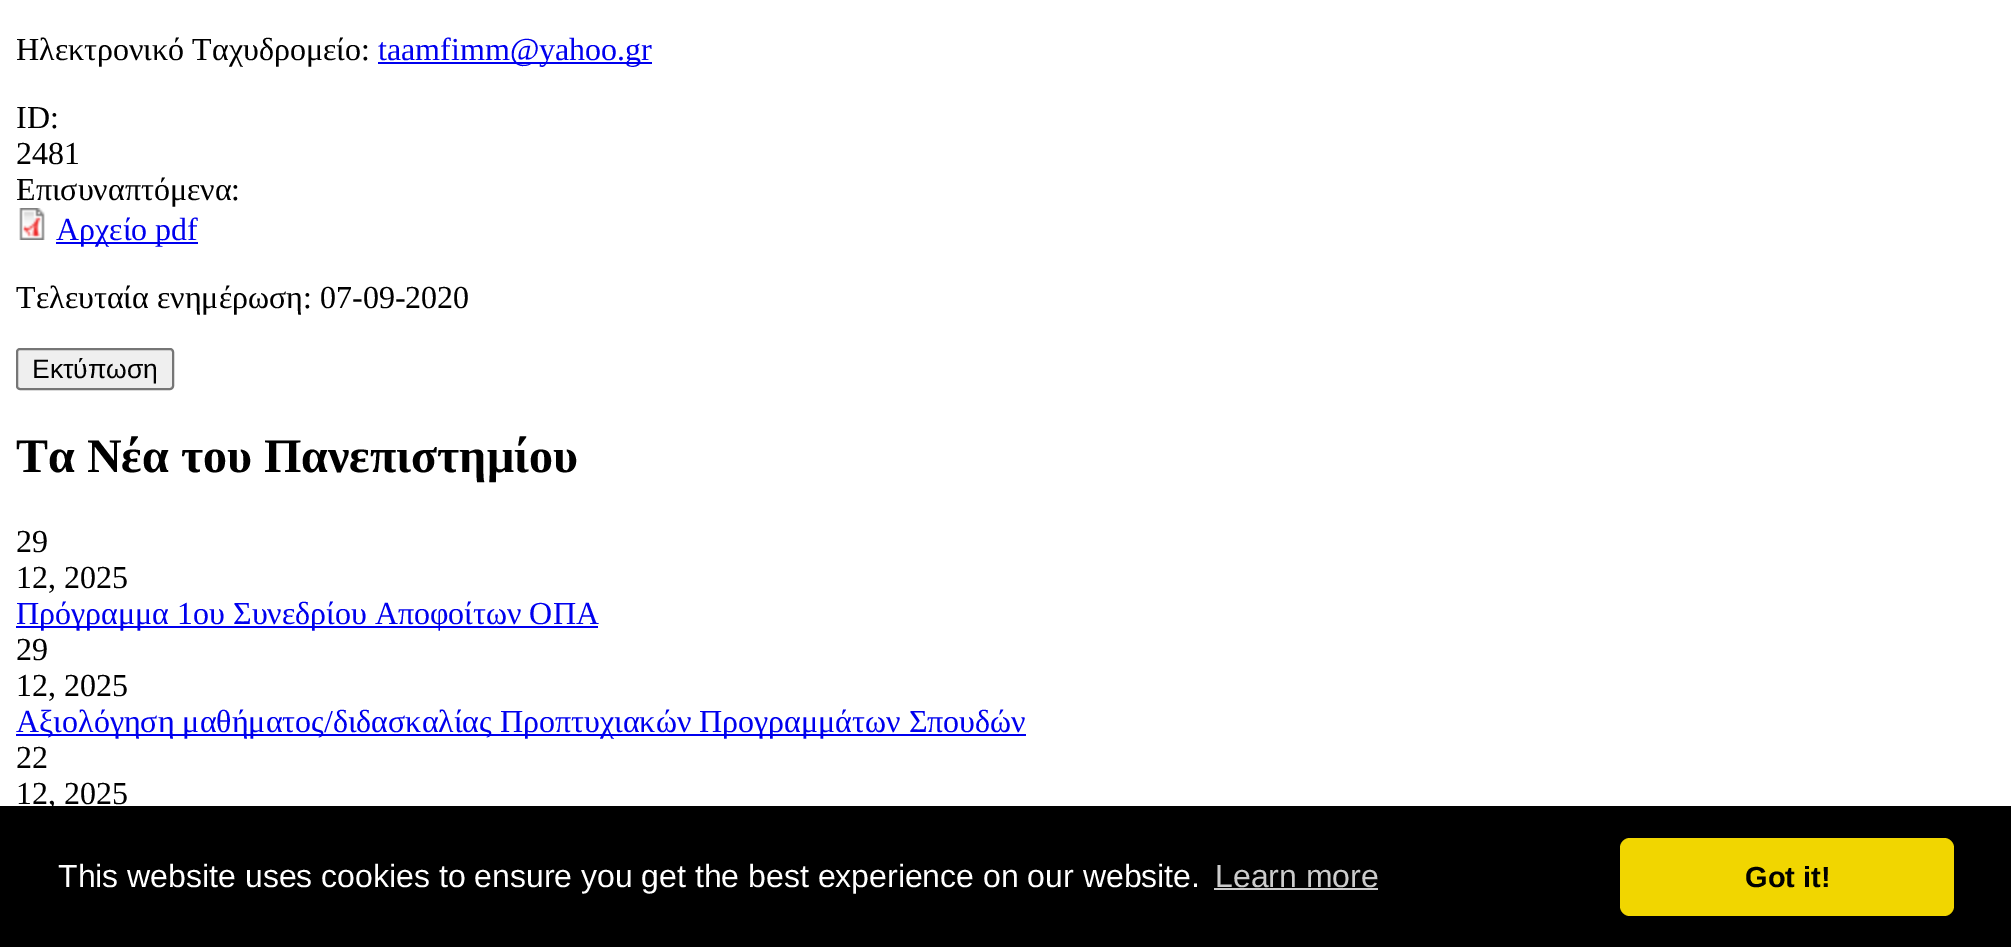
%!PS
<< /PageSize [2011 947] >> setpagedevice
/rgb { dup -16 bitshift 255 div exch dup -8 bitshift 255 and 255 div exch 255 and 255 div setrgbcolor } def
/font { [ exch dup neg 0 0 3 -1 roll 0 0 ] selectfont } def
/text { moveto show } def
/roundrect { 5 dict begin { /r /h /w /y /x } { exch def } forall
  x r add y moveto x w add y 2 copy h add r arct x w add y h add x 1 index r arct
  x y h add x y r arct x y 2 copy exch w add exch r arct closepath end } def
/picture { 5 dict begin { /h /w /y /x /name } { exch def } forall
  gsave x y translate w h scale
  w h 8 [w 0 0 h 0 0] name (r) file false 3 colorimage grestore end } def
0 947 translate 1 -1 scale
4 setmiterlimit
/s1 { /LiberationSerif-Regular 32 font 16#000000 rgb } def
/s2 { /LiberationSerif-Regular 32 font 16#0000EE rgb } def
/s3 { /LiberationSans-Regular 26.5 font 16#000000 rgb } def
/s4 { /LiberationSerif-Bold 48 font 16#000000 rgb } def
/s5 { /LiberationSans-Regular 32 font 16#FFFFFF rgb } def
/s6 { /LiberationSans-Regular 32 font 16#CCCCCC rgb } def
/s7 { /LiberationSans-Bold 29 font 16#000000 rgb } def
16#FFFFFF rgb
0 0 2011 947 rectfill
s1
(Ηλεκτρονικό Ταχυδρομείο:) 16 60 text
16#0000EE rgb
378 62 274 2 rectfill
(taamfimm@yahoo.gr) 378 60 text
s1
(ID:) 16 128 text
(2481) 16 164 text
(Επισυναπτόμενα:) 16 200 text
(pic1.raw) 19 208 26 32 picture
16#0000EE rgb
56 242 142 2 rectfill
(Αρχείο pdf) 56 240 text
s1
(Τελευταία ενημέρωση: 07-09-2020) 16 308 text
16#EFEFEF rgb
17 349 156 40 3 roundrect gsave fill grestore
16#767676 rgb
2 setlinewidth
stroke
s3
(Εκτύπωση) 32 378 text
s4
(Τα Νέα του Πανεπιστημίου) 16 472 text
s1
(29) 16 552 text
(12, 2025) 16 588 text
16#0000EE rgb
16 626 582 2 rectfill
(Πρόγραμμα 1ου Συνεδρίου Αποφοίτων ΟΠΑ) 16 624 text
s1
(29) 16 660 text
(12, 2025) 16 696 text
16#0000EE rgb
16 734 1010 2 rectfill
(Aξιολόγηση μαθήματος/διδασκαλίας Προπτυχιακών Προγραμμάτων Σπουδών) 16 732 text
s1
(22) 16 768 text
(12, 2025) 16 804 text
0 806 2011 141 rectfill
s5
(This website uses cookies to ensure you get the best experience on our website.) 58 887 text
s6
(Learn more) 1215 887 text
1214 888 164 2 rectfill
16#F1D600 rgb
1620 838 334 78 10 roundrect fill
s7
(Got it!) 1745 887 text
showpage
